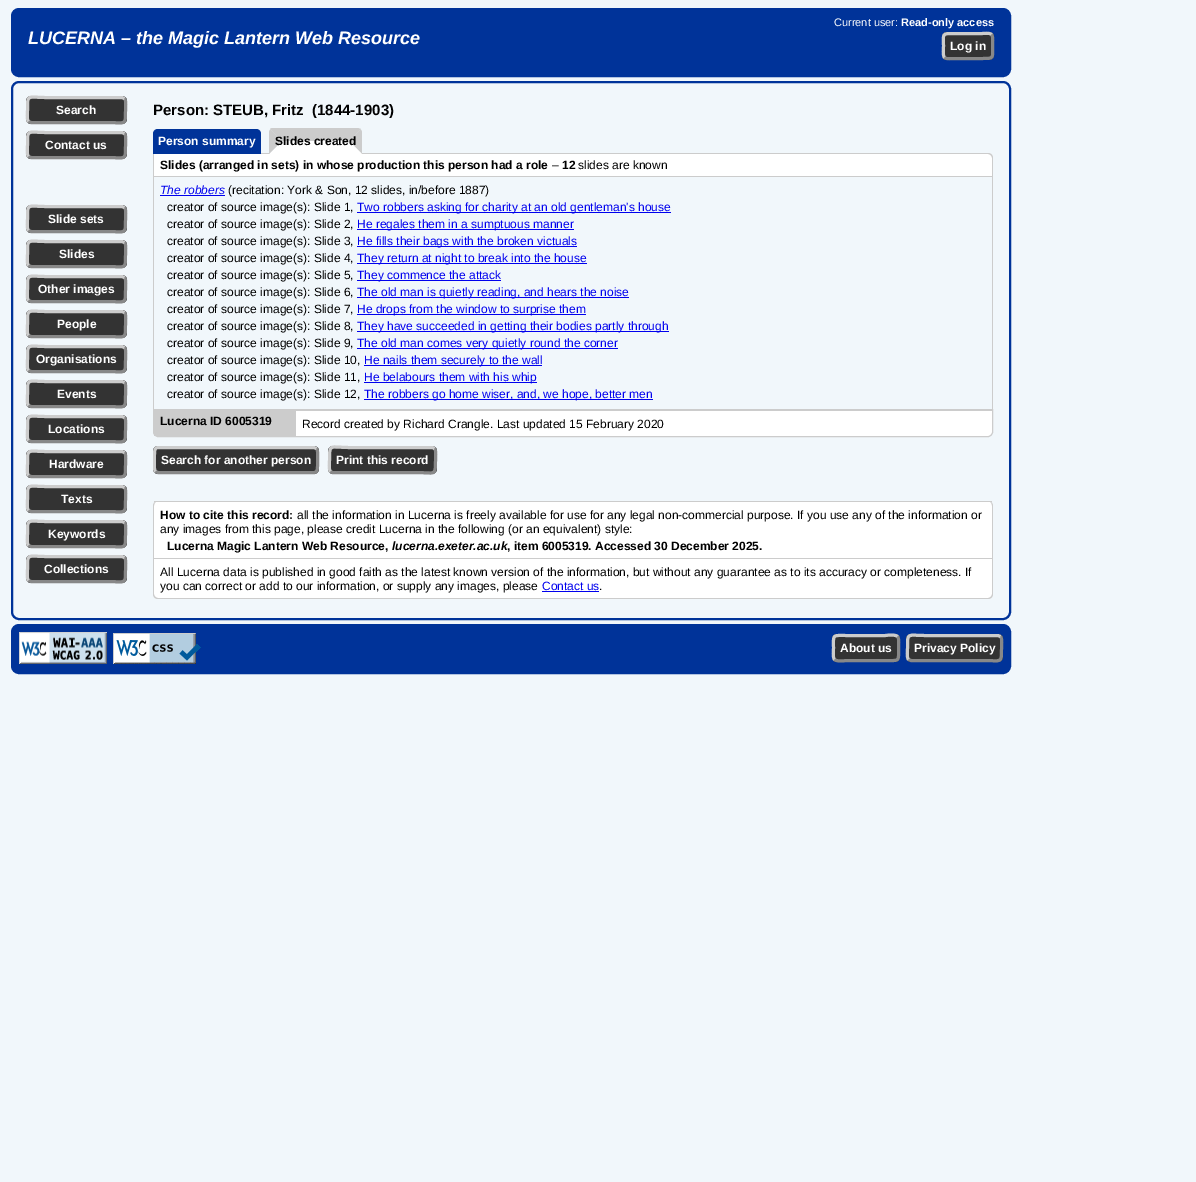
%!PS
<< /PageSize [1196 1182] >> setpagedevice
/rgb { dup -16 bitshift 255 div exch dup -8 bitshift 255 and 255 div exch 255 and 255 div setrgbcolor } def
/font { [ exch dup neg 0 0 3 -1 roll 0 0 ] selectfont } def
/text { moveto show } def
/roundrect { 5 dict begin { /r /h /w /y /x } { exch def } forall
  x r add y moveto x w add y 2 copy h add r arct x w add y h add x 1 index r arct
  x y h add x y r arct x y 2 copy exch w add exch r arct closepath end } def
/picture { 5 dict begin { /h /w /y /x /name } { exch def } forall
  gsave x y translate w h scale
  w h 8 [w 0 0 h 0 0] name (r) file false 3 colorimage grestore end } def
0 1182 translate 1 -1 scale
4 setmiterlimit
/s1 { /LiberationSans-BoldItalic 18 font 16#FFFFFF rgb } def
/s2 { /LiberationSans-Regular 11 font 16#FFFFFF rgb } def
/s3 { /LiberationSans-Bold 11 font 16#FFFFFF rgb } def
/s4 { /LiberationSans-Bold 12 font 16#FFFFFF rgb } def
/s5 { /LiberationSans-Bold 15 font 16#000000 rgb } def
/s6 { /LiberationSans-Bold 12 font 16#000000 rgb } def
/s7 { /LiberationSans-Regular 12 font 16#000000 rgb } def
/s8 { /LiberationSans-Italic 12 font 16#0000EE rgb } def
/s9 { /LiberationSans-Regular 12 font 16#0000EE rgb } def
/s10 { /LiberationSans-BoldItalic 12 font 16#000000 rgb } def
16#F1F7FB rgb
0 0 1196 1182 rectfill
16#003399 rgb
12 9 998 67 7 roundrect gsave fill grestore
2 setlinewidth
stroke
s1
(LUCERNA – the Magic Lantern Web Resource) 28 44 text
s2
(Current user:) 834 26 text
s3
(Read-only access) 901 26 text
16#333333 rgb
942 32 52 28 5 roundrect fill
16#888888 rgb
3 setlinewidth
991.5 34.5 moveto 993.5 36.5 992.5 43.5 992.5 46 curveto 992.5 58.5 994.5 58.5 982 58.5 curveto 954 58.5 lineto 952.5 58.5 946.5 59.5 944.5 57.5 curveto stroke
16#CCCCCC rgb
944.5 57.5 moveto 942.5 55.5 943.5 48.5 943.5 46 curveto 943.5 33.5 941.5 33.5 954 33.5 curveto 982 33.5 lineto 983.5 33.5 989.5 32.5 991.5 34.5 curveto stroke
s4
(Log in) 950 50 text
16#003399 rgb
2 setlinewidth
12 82 998 537 7 roundrect stroke
16#333333 rgb
26 96 101 28 5 roundrect fill
16#888888 rgb
3 setlinewidth
124.5 98.5 moveto 126.5 100.5 125.5 107.5 125.5 110 curveto 125.5 126.5 126 122.5 107 122.5 curveto 31 122.5 lineto 28.5 121.5 lineto stroke
16#CCCCCC rgb
28.5 121.5 moveto 26.5 119.5 27.5 112.5 27.5 110 curveto 27.5 93.5 27 97.5 46 97.5 curveto 122 97.5 lineto 124.5 98.5 lineto stroke
s4
(Search) 56 114 text
16#333333 rgb
26 131 101 28 5 roundrect fill
16#888888 rgb
124.5 133.5 moveto 126.5 135.5 125.5 142.5 125.5 145 curveto 125.5 161.5 126 157.5 107 157.5 curveto 31 157.5 lineto 28.5 156.5 lineto stroke
16#CCCCCC rgb
28.5 156.5 moveto 26.5 154.5 27.5 147.5 27.5 145 curveto 27.5 128.5 27 132.5 46 132.5 curveto 122 132.5 lineto 124.5 133.5 lineto stroke
s4
(Contact us) 45 149 text
16#333333 rgb
26 205 101 28 5 roundrect fill
16#888888 rgb
124.5 207.5 moveto 126.5 209.5 125.5 216.5 125.5 219 curveto 125.5 235.5 126 231.5 107 231.5 curveto 31 231.5 lineto 28.5 230.5 lineto stroke
16#CCCCCC rgb
28.5 230.5 moveto 26.5 228.5 27.5 221.5 27.5 219 curveto 27.5 202.5 27 206.5 46 206.5 curveto 122 206.5 lineto 124.5 207.5 lineto stroke
s4
(Slide sets) 48 223 text
16#333333 rgb
26 240 101 28 5 roundrect fill
16#888888 rgb
124.5 242.5 moveto 126.5 244.5 125.5 251.5 125.5 254 curveto 125.5 270.5 126 266.5 107 266.5 curveto 31 266.5 lineto 28.5 265.5 lineto stroke
16#CCCCCC rgb
28.5 265.5 moveto 26.5 263.5 27.5 256.5 27.5 254 curveto 27.5 237.5 27 241.5 46 241.5 curveto 122 241.5 lineto 124.5 242.5 lineto stroke
s4
(Slides) 59 258 text
16#333333 rgb
26 275 101 28 5 roundrect fill
16#888888 rgb
124.5 277.5 moveto 126.5 279.5 125.5 286.5 125.5 289 curveto 125.5 305.5 126 301.5 107 301.5 curveto 31 301.5 lineto 28.5 300.5 lineto stroke
16#CCCCCC rgb
28.5 300.5 moveto 26.5 298.5 27.5 291.5 27.5 289 curveto 27.5 272.5 27 276.5 46 276.5 curveto 122 276.5 lineto 124.5 277.5 lineto stroke
s4
(Other images) 38 293 text
16#333333 rgb
26 310 101 28 5 roundrect fill
16#888888 rgb
124.5 312.5 moveto 126.5 314.5 125.5 321.5 125.5 324 curveto 125.5 340.5 126 336.5 107 336.5 curveto 31 336.5 lineto 28.5 335.5 lineto stroke
16#CCCCCC rgb
28.5 335.5 moveto 26.5 333.5 27.5 326.5 27.5 324 curveto 27.5 307.5 27 311.5 46 311.5 curveto 122 311.5 lineto 124.5 312.5 lineto stroke
s4
(People) 57 328 text
16#333333 rgb
26 345 101 28 5 roundrect fill
16#888888 rgb
124.5 347.5 moveto 126.5 349.5 125.5 356.5 125.5 359 curveto 125.5 375.5 126 371.5 107 371.5 curveto 31 371.5 lineto 28.5 370.5 lineto stroke
16#CCCCCC rgb
28.5 370.5 moveto 26.5 368.5 27.5 361.5 27.5 359 curveto 27.5 342.5 27 346.5 46 346.5 curveto 122 346.5 lineto 124.5 347.5 lineto stroke
s4
(Organisations) 36 363 text
16#333333 rgb
26 380 101 28 5 roundrect fill
16#888888 rgb
124.5 382.5 moveto 126.5 384.5 125.5 391.5 125.5 394 curveto 125.5 410.5 126 406.5 107 406.5 curveto 31 406.5 lineto 28.5 405.5 lineto stroke
16#CCCCCC rgb
28.5 405.5 moveto 26.5 403.5 27.5 396.5 27.5 394 curveto 27.5 377.5 27 381.5 46 381.5 curveto 122 381.5 lineto 124.5 382.5 lineto stroke
s4
(Events) 57 398 text
16#333333 rgb
26 415 101 28 5 roundrect fill
16#888888 rgb
124.5 417.5 moveto 126.5 419.5 125.5 426.5 125.5 429 curveto 125.5 445.5 126 441.5 107 441.5 curveto 31 441.5 lineto 28.5 440.5 lineto stroke
16#CCCCCC rgb
28.5 440.5 moveto 26.5 438.5 27.5 431.5 27.5 429 curveto 27.5 412.5 27 416.5 46 416.5 curveto 122 416.5 lineto 124.5 417.5 lineto stroke
s4
(Locations) 48 433 text
16#333333 rgb
26 450 101 28 5 roundrect fill
16#888888 rgb
124.5 452.5 moveto 126.5 454.5 125.5 461.5 125.5 464 curveto 125.5 480.5 126 476.5 107 476.5 curveto 31 476.5 lineto 28.5 475.5 lineto stroke
16#CCCCCC rgb
28.5 475.5 moveto 26.5 473.5 27.5 466.5 27.5 464 curveto 27.5 447.5 27 451.5 46 451.5 curveto 122 451.5 lineto 124.5 452.5 lineto stroke
s4
(Hardware) 49 468 text
16#333333 rgb
26 485 101 28 5 roundrect fill
16#888888 rgb
124.5 487.5 moveto 126.5 489.5 125.5 496.5 125.5 499 curveto 125.5 515.5 126 511.5 107 511.5 curveto 31 511.5 lineto 28.5 510.5 lineto stroke
16#CCCCCC rgb
28.5 510.5 moveto 26.5 508.5 27.5 501.5 27.5 499 curveto 27.5 482.5 27 486.5 46 486.5 curveto 122 486.5 lineto 124.5 487.5 lineto stroke
s4
(Texts) 61 503 text
16#333333 rgb
26 520 101 28 5 roundrect fill
16#888888 rgb
124.5 522.5 moveto 126.5 524.5 125.5 531.5 125.5 534 curveto 125.5 550.5 126 546.5 107 546.5 curveto 31 546.5 lineto 28.5 545.5 lineto stroke
16#CCCCCC rgb
28.5 545.5 moveto 26.5 543.5 27.5 536.5 27.5 534 curveto 27.5 517.5 27 521.5 46 521.5 curveto 122 521.5 lineto 124.5 522.5 lineto stroke
s4
(Keywords) 48 538 text
16#333333 rgb
26 555 101 28 5 roundrect fill
16#888888 rgb
124.5 557.5 moveto 126.5 559.5 125.5 566.5 125.5 569 curveto 125.5 585.5 126 581.5 107 581.5 curveto 31 581.5 lineto 28.5 580.5 lineto stroke
16#CCCCCC rgb
28.5 580.5 moveto 26.5 578.5 27.5 571.5 27.5 569 curveto 27.5 552.5 27 556.5 46 556.5 curveto 122 556.5 lineto 124.5 557.5 lineto stroke
s4
(Collections) 44 573 text
s5
(Person: STEUB, Fritz  \(1844-1903\)) 153 115 text
16#FFFFFF rgb
153 153 moveto 988 153 lineto 991 153 993 155 993 158 curveto 993 409 lineto 153 409 lineto closepath fill
16#CCCCCC rgb
153 153 moveto 988 153 lineto 991 153 993 155 993 158 curveto 993 409 lineto 153 409 lineto closepath 154 154 moveto 988 154 lineto 990 154 992 156 992 158 curveto 992 409 lineto 154 409 lineto closepath eofill
16#003399 rgb
158 129 moveto 256 129 lineto 259 129 261 131 261 134 curveto 261 154 lineto 153 154 lineto 153 134 lineto 153 131 155 129 158 129 curveto closepath fill
s4
(Person summary) 158 145 text
16#CCCCCC rgb
274 128 moveto 358 128 lineto 361 129 lineto 349 141 lineto 282 141 lineto 270 129 lineto 271 128 272 128 274 128 curveto closepath fill
360.5 129.5 moveto 349 141 lineto 362 154 lineto 362 133 lineto 362 131.5 361.5 130 360.5 129.5 curveto closepath fill
16#FFFFFF rgb
362 154 moveto 349 141 lineto 282 141 lineto 269 154 lineto closepath fill
16#CCCCCC rgb
269 154 moveto 269 133 lineto 269 131.5 269.5 130 270.5 129.5 curveto 282 141 lineto closepath fill
s6
(Slides created) 275 145 text
(Slides \(arranged in sets\) in whose production this person had a role) 160 169 text
s7
(–) 552 169 text
s6
(12) 562 169 text
s7
(slides are known) 578 169 text
16#F1F7FB rgb
154 177 838 232 rectfill
16#CCCCCC rgb
154 176 838 1 rectfill
s8
(The robbers) 160 194 text
160 195 65 1 rectfill
s7
(\(recitation: York & Son, 12 slides, in/before 1887\)) 228 194 text
(creator of source image\(s\): Slide 1,) 167 211 text
16#0000EE rgb
357 212 314 1 rectfill
(Two robbers asking for charity at an old gentleman's house) 357 211 text
s7
(creator of source image\(s\): Slide 2,) 167 228 text
16#0000EE rgb
357 229 217 1 rectfill
(He regales them in a sumptuous manner) 357 228 text
s7
(creator of source image\(s\): Slide 3,) 167 245 text
16#0000EE rgb
357 246 220 1 rectfill
(He fills their bags with the broken victuals) 357 245 text
s7
(creator of source image\(s\): Slide 4,) 167 262 text
16#0000EE rgb
357 263 230 1 rectfill
(They return at night to break into the house) 357 262 text
s7
(creator of source image\(s\): Slide 5,) 167 279 text
16#0000EE rgb
357 280 144 1 rectfill
(They commence the attack) 357 279 text
s7
(creator of source image\(s\): Slide 6,) 167 296 text
16#0000EE rgb
357 297 272 1 rectfill
(The old man is quietly reading, and hears the noise) 357 296 text
s7
(creator of source image\(s\): Slide 7,) 167 313 text
16#0000EE rgb
357 314 229 1 rectfill
(He drops from the window to surprise them) 357 313 text
s7
(creator of source image\(s\): Slide 8,) 167 330 text
16#0000EE rgb
357 331 312 1 rectfill
(They have succeeded in getting their bodies partly through) 357 330 text
s7
(creator of source image\(s\): Slide 9,) 167 347 text
16#0000EE rgb
357 348 261 1 rectfill
(The old man comes very quietly round the corner) 357 347 text
s7
(creator of source image\(s\): Slide 10,) 167 364 text
16#0000EE rgb
364 365 178 1 rectfill
(He nails them securely to the wall) 364 364 text
s7
(creator of source image\(s\): Slide 11,) 167 381 text
16#0000EE rgb
364 382 173 1 rectfill
(He belabours them with his whip) 364 381 text
s7
(creator of source image\(s\): Slide 12,) 167 398 text
16#0000EE rgb
364 399 289 1 rectfill
(The robbers go home wiser, and, we hope, better men) 364 398 text
16#FFFFFF rgb
153.5 409.5 moveto 992.5 409.5 lineto 992.5 432 lineto 992.5 434.5 990.5 436.5 988 436.5 curveto 158 436.5 lineto 155.5 436.5 153.5 434.5 153.5 432 curveto closepath gsave fill grestore
16#CCCCCC rgb
1 setlinewidth
stroke
154 410 142 26 rectfill
s6
(Lucerna ID 6005319) 160 425 text
16#CCCCCC rgb
296 410 696 1 rectfill
s7
(Record created by Richard Crangle. Last updated 15 February 2020) 302 428 text
16#333333 rgb
153 446 166 28 5 roundrect fill
16#888888 rgb
3 setlinewidth
316.5 448.5 moveto 318.5 450.5 317.5 462.5 317.5 466 curveto 317.5 468.5 317.5 472.5 314 472.5 curveto 158 472.5 lineto 155.5 471.5 lineto stroke
gsave
153 437 844 50 rectclip
16#CCCCCC rgb
155.5 471.5 moveto 153.5 469.5 154.5 457.5 154.5 454 curveto 154.5 451.5 154.5 447.5 158 447.5 curveto 314 447.5 lineto 316.5 448.5 lineto stroke
grestore
s4
(Search for another person) 161 464 text
16#333333 rgb
328 446 109 28 5 roundrect fill
16#888888 rgb
434.5 448.5 moveto 436.5 450.5 435.5 457.5 435.5 460 curveto 435.5 477 435.5 472.5 415.5 472.5 curveto 332.5 472.5 lineto 330.5 471.5 lineto stroke
16#CCCCCC rgb
330.5 471.5 moveto 328.5 469.5 329.5 462.5 329.5 460 curveto 329.5 443 329.5 447.5 349.5 447.5 curveto 432.5 447.5 lineto 434.5 448.5 lineto stroke
s4
(Print this record) 336 464 text
153 501 840 98 5 roundrect fill
16#CCCCCC rgb
158 501 moveto 988 501 lineto 991 501 993 503 993 506 curveto 993 594 lineto 993 597 991 599 988 599 curveto 158 599 lineto 155 599 153 597 153 594 curveto 153 506 lineto 153 503 155 501 158 501 curveto closepath 158 501 moveto 988 501 lineto 990 501 992 503 992 506 curveto 992 594 lineto 992 596 990 598 988 598 curveto 158 598 lineto 156 598 154 596 154 594 curveto 154 506 lineto 154 503 156 501 158 501 curveto closepath eofill
154 501 838 1 rectfill
s6
(How to cite this record:) 160 519 text
s7
(all the information in Lucerna is freely available for use for any legal non-commercial purpose. If you use any of the information or) 297 519 text
(any images from this page, please credit Lucerna in the following \(or an equivalent\) style:) 160 533 text
s6
(Lucerna Magic Lantern Web Resource,) 167 550 text
s10
(lucerna.exeter.ac.uk) 392 550 text
s6
(, item 6005319. Accessed 30 December 2025.) 507 550 text
16#CCCCCC rgb
154 558 838 1 rectfill
s7
(All Lucerna data is published in good faith as the latest known version of the information, but without any guarantee as to its accuracy or completeness. If) 160 576 text
(you can correct or add to our information, or supply any images, please) 160 590 text
s9
(Contact us) 542 590 text
542 591 57 1 rectfill
s7
(.) 599 590 text
16#003399 rgb
12 625 998 48 7 roundrect gsave fill grestore
2 setlinewidth
stroke
(pic1.raw) 19 632 88 32 picture
(pic2.raw) 113 633 88 31 picture
16#333333 rgb
832 634 68 28 5 roundrect fill
16#888888 rgb
3 setlinewidth
897.5 636.5 moveto 899.5 638.5 898.5 645.5 898.5 648 curveto 898.5 662 900 660.5 885.5 660.5 curveto 846.5 660.5 lineto 846.5 660.5 837 662 834.5 659.5 curveto stroke
16#CCCCCC rgb
834.5 659.5 moveto 832.5 657.5 833.5 650.5 833.5 648 curveto 833.5 634 832 635.5 846.5 635.5 curveto 885.5 635.5 lineto 885.5 635.5 895 634 897.5 636.5 curveto stroke
s4
(About us) 840 652 text
16#333333 rgb
906 634 97 28 5 roundrect fill
16#888888 rgb
1000.5 636.5 moveto 1002.5 638.5 1001.5 645.5 1001.5 648 curveto 1001.5 664 1002 660.5 983.5 660.5 curveto 911 660.5 lineto 908.5 659.5 lineto stroke
16#CCCCCC rgb
908.5 659.5 moveto 906.5 657.5 907.5 650.5 907.5 648 curveto 907.5 632 907 635.5 925.5 635.5 curveto 998 635.5 lineto 1000.5 636.5 lineto stroke
s4
(Privacy Policy) 914 652 text
showpage
